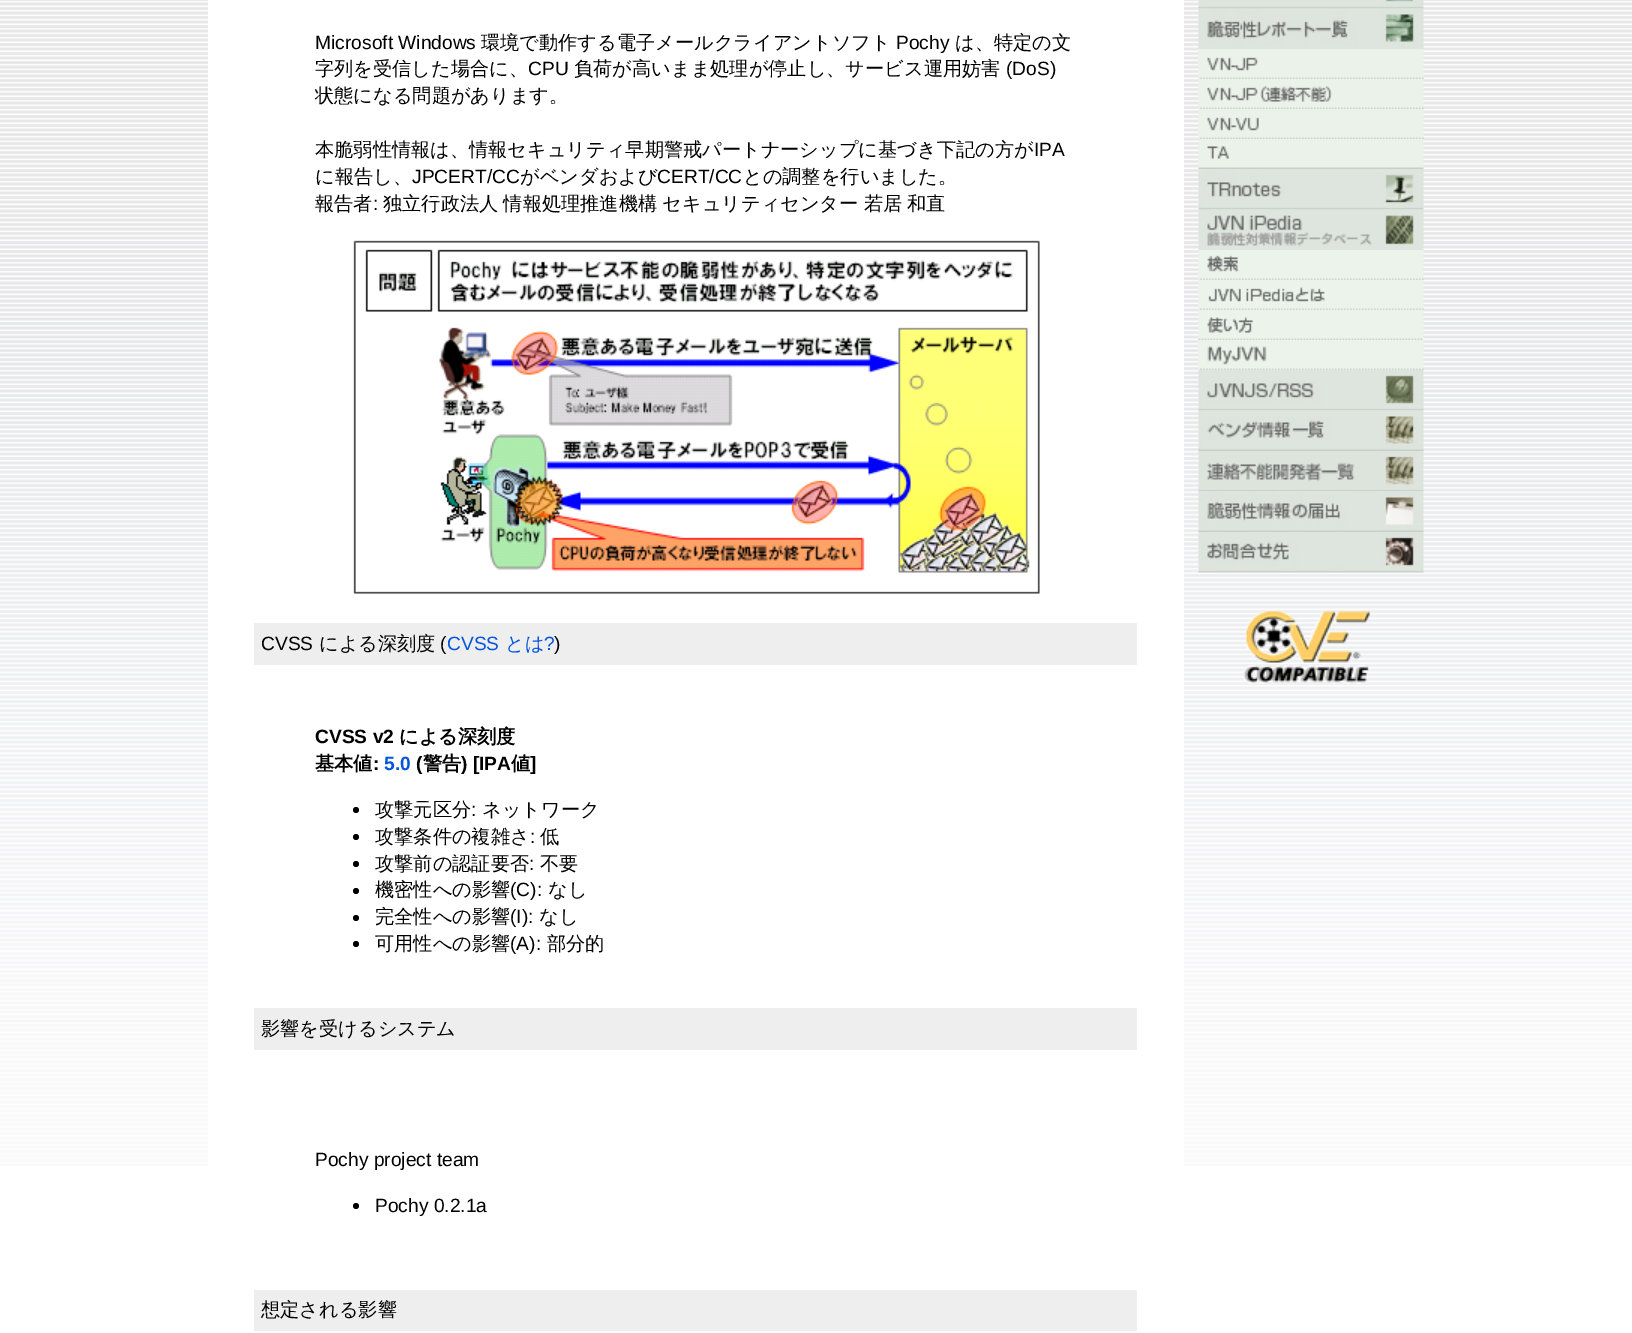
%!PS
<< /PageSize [1632 1333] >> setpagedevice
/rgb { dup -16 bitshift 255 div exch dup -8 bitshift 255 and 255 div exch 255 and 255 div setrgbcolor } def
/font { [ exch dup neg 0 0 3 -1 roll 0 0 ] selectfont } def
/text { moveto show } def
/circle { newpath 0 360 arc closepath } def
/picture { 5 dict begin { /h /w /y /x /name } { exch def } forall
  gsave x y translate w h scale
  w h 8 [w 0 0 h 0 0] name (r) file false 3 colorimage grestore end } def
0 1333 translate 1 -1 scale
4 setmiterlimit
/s1 { /LiberationSans-Regular 19.2 font 16#000000 rgb } def
/s2 { /WenQuanYiZenHei-Medium 19.2 font 16#000000 rgb } def
/s3 { /LiberationSans-Regular 19.2 font 16#0455DC rgb } def
/s4 { /WenQuanYiZenHei-Medium 19.2 font 16#0455DC rgb } def
/s5 { /LiberationSans-Bold 19.2 font 16#000000 rgb } def
/s6 { /WenQuanYiZenHei-Bold 19.2 font 16#000000 rgb } def
/s7 { /LiberationSans-Bold 19.2 font 16#0455DC rgb } def
16#FFFFFF rgb
0 0 1632 1333 rectfill
(pic1.raw) 0 0 1632 1166 picture
208 0 976 1166 rectfill
s1
(Microsoft Windows) 315 49 text
s2
(環境で動作する電子メールクライアントソフト) 481 49 text
s1
(Pochy) 896 49 text
s2
(は、特定の文) 955 49 text
(字列を受信した場合に、) 315 75 text
s1
(CPU) 528 75 text
s2
(負荷が高いまま処理が停止し、サービス運用妨害) 574 75 text
s1
(\(DoS\)) 1006 75 text
s2
(状態になる問題があります。) 315 102 text
(本脆弱性情報は、情報セキュリティ早期警戒パートナーシップに基づき下記の方が) 315 156 text
s1
(IPA) 1034 156 text
s2
(に報告し、) 315 183 text
s1
(JPCERT/CC) 412 183 text
s2
(がベンダおよび) 520 183 text
s1
(CERT/CC) 657 183 text
s2
(との調整を行いました。) 743 183 text
(報告者) 315 210 text
s1
(:) 373 210 text
/WenQuanYiZenHei-Medium 19.2 font
383 210 moveto -0.5 0 32 (独立行政法人 情報処理推進機構 セキュリティセンター 若居 和直) widthshow
(pic2.raw) 353 240 687 354 picture
16#EEEEEE rgb
254 623 883 42 rectfill
s1
(CVSS) 261 650 text
s2
(による深刻度) 319 650 text
s1
(\() 440 650 text
s3
(CVSS) 447 650 text
s4
(とは) 505 650 text
s3
(?) 544 650 text
s1
(\)) 554 650 text
s5
(CVSS v2) 315 743 text
s6
(による深刻度) 399 743 text
(基本値) 315 770 text
s5
(:) 373 770 text
s7
(5.0) 384 770 text
s5
(\() 416 770 text
s6
(警告) 423 770 text
s5
(\) [IPA) 461 770 text
s6
(値) 511 770 text
s5
(]) 530 770 text
356 810 3 circle fill
s2
(攻撃元区分) 375 816 text
s1
(:) 471 816 text
s2
(ネットワーク) 482 816 text
356 837 3 circle fill
(攻撃条件の複雑さ) 375 843 text
s1
(:) 530 843 text
s2
(低) 540 843 text
356 864 3 circle fill
(攻撃前の認証要否) 375 870 text
s1
(:) 529 870 text
s2
(不要) 540 870 text
356 891 3 circle fill
(機密性への影響) 375 896 text
s1
(\(C\):) 510 896 text
s2
(なし) 548 896 text
356 918 3 circle fill
(完全性への影響) 375 923 text
s1
(\(I\):) 510 923 text
s2
(なし) 539 923 text
356 944 3 circle fill
(可用性への影響) 375 950 text
s1
(\(A\):) 510 950 text
s2
(部分的) 547 950 text
16#EEEEEE rgb
254 1008 883 42 rectfill
s2
(影響を受けるシステム) 261 1035 text
s1
(Pochy project team) 315 1166 text
356 1206 3 circle fill
(Pochy 0.2.1a) 375 1212 text
16#EEEEEE rgb
254 1290 883 41 rectfill
s2
(想定される影響) 261 1316 text
(pic3.raw) 1198 0 226 9 picture
(pic4.raw) 1198 8 226 41 picture
(pic5.raw) 1198 49 226 30 picture
(pic6.raw) 1198 79 226 30 picture
(pic7.raw) 1198 109 226 30 picture
(pic8.raw) 1198 139 226 30 picture
(pic9.raw) 1198 169 226 41 picture
(pic10.raw) 1198 210 226 40 picture
(pic11.raw) 1198 250 226 30 picture
(pic12.raw) 1198 280 226 30 picture
(pic13.raw) 1198 310 226 30 picture
(pic14.raw) 1198 340 226 30 picture
(pic15.raw) 1198 370 226 41 picture
(pic16.raw) 1198 411 226 40 picture
(pic17.raw) 1198 451 226 41 picture
(pic18.raw) 1198 492 226 40 picture
(pic19.raw) 1198 532 226 41 picture
(pic20.raw) 1243 611 127 73 picture
showpage
